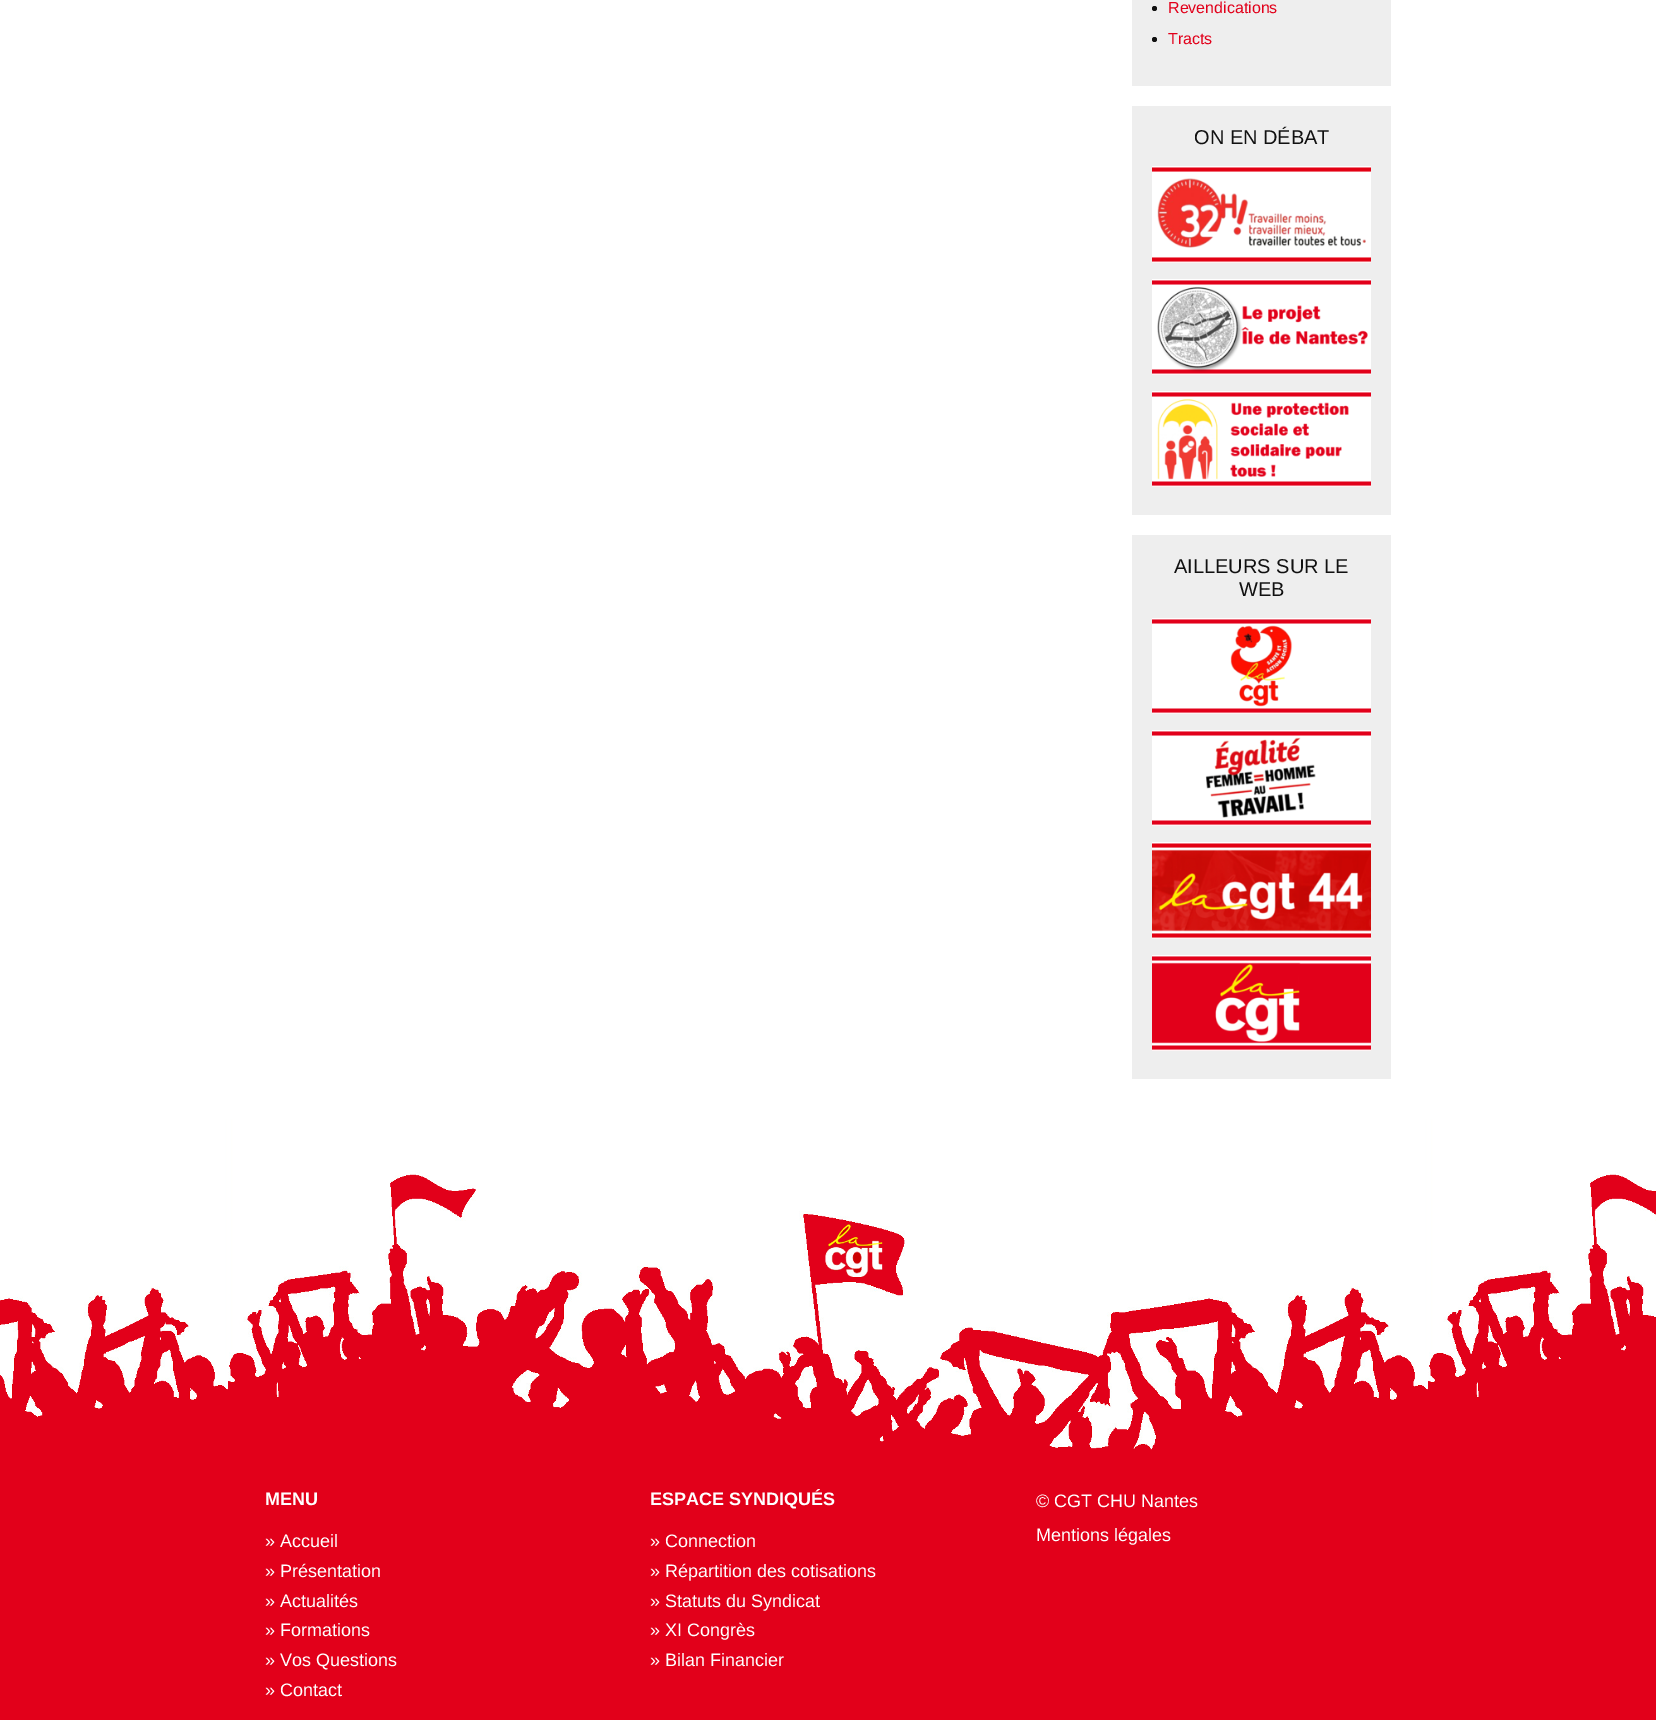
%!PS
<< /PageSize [1656 1720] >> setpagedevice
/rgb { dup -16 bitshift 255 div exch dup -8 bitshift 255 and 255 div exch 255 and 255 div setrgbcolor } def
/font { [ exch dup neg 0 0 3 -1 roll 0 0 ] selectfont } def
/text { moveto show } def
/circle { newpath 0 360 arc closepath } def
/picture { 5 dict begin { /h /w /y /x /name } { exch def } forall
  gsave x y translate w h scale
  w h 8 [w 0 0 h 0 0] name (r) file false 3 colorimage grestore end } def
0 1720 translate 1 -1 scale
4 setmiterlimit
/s1 { /LiberationSans-Regular 16 font 16#E2001A rgb } def
/s2 { /LiberationSans-Regular 20 font 16#111111 rgb } def
/s3 { /LiberationSans-Bold 18 font 16#FFFFFF rgb } def
/s4 { /LiberationSans-Regular 18 font 16#FFFFFF rgb } def
16#FFFFFF rgb
0 0 1656 1720 rectfill
16#EEEEEE rgb
1132 0 259 86 rectfill
16#111111 rgb
1154.5 8.5 2.5 circle fill
s1
(Revendications) 1168 13 text
16#111111 rgb
1154.5 39.5 2.5 circle fill
s1
(Tracts) 1168 44 text
16#EEEEEE rgb
1132 106 259 409 rectfill
s2
(ON EN DÉBAT) 1194 144 text
16#FFFFFF rgb
1152 166 219 97 rectfill
(pic1.raw) 1152 167 219 96 picture
1152 279 219 96 rectfill
(pic2.raw) 1152 280 219 95 picture
1152 391 219 96 rectfill
(pic3.raw) 1152 392 219 95 picture
16#EEEEEE rgb
1132 535 259 544 rectfill
s2
(AILLEURS SUR LE) 1174 573 text
(WEB) 1239 596 text
16#FFFFFF rgb
1152 618 219 96 rectfill
(pic4.raw) 1152 619 219 95 picture
1152 730 219 96 rectfill
(pic5.raw) 1152 731 219 95 picture
1152 842 219 97 rectfill
(pic6.raw) 1152 843 219 96 picture
1152 955 219 96 rectfill
(pic7.raw) 1152 956 219 95 picture
16#E2001A rgb
0 1450 1656 270 rectfill
(pic8.raw) 0 1119 1656 331 picture
s3
(MENU) 265 1505 text
s4
(») 265 1547 text
(Accueil) 280 1547 text
(») 265 1577 text
(Présentation) 280 1577 text
(») 265 1607 text
(Actualités) 280 1607 text
(») 265 1636 text
(Formations) 280 1636 text
(») 265 1666 text
(Vos Questions) 280 1666 text
(») 265 1696 text
(Contact) 280 1696 text
s3
(ESPACE SYNDIQUÉS) 650 1505 text
s4
(») 650 1547 text
(Connection) 665 1547 text
(») 650 1577 text
(Répartition des cotisations) 665 1577 text
(») 650 1607 text
(Statuts du Syndicat) 665 1607 text
(») 650 1636 text
(XI Congrès) 665 1636 text
(») 650 1666 text
(Bilan Financier) 665 1666 text
(© CGT CHU Nantes) 1036 1507 text
(Mentions légales) 1036 1541 text
showpage
